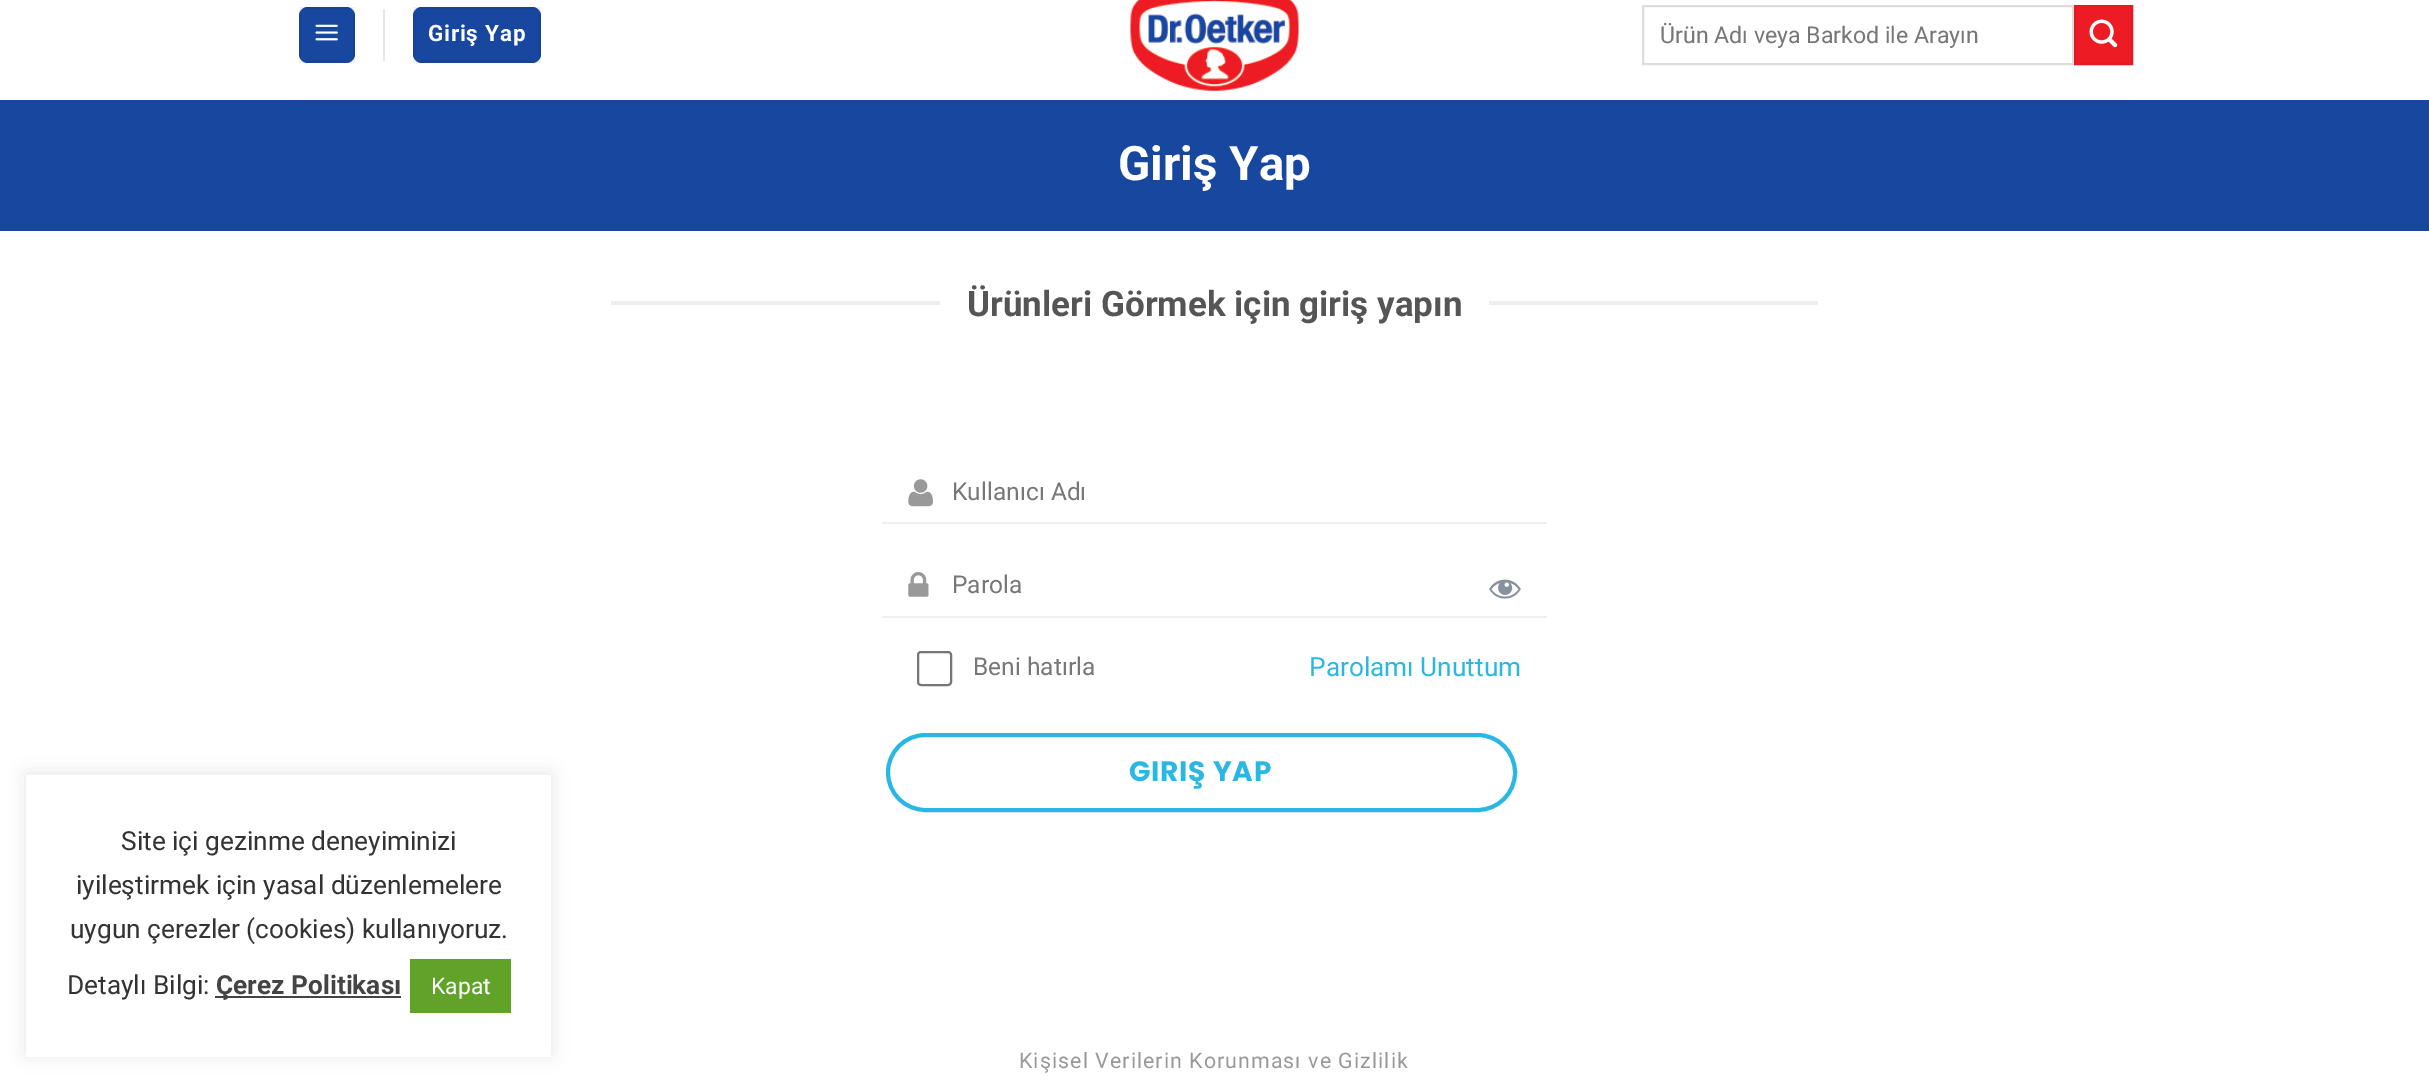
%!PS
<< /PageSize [2429 1083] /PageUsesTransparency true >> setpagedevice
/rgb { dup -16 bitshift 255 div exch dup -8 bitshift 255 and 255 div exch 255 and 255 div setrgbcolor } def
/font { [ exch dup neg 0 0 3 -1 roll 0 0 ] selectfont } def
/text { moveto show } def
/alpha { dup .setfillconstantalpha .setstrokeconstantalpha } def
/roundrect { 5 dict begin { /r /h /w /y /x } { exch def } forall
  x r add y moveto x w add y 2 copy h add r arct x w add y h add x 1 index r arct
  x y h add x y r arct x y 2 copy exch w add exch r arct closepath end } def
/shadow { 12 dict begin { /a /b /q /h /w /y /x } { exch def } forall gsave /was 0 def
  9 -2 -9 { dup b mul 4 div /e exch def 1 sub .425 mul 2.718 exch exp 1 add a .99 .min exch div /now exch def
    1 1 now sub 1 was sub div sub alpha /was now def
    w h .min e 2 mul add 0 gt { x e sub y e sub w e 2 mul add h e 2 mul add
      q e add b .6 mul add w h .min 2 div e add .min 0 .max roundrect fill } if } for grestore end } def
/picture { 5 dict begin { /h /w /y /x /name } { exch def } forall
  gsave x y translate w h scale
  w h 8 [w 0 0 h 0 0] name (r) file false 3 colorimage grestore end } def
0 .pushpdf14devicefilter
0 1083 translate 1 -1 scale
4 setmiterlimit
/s1 { /Roboto-Regular 26.25 font 16#333333 rgb } def
/s2 { /Roboto-Bold 26.25 font 16#444444 rgb } def
/s3 { /Roboto-Regular 23 font 16#FFFFFF rgb } def
/s4 { /Roboto-Regular 23.1 font 16#777777 rgb } def
/s5 { /Roboto-Bold 47.5 font 16#FFFFFF rgb } def
/s6 { /Roboto-Bold 35 font 16#555555 rgb } def
/s7 { /Roboto-Regular 24.5 font 16#777777 rgb } def
/s8 { /Roboto-Regular 26.25 font 16#2BB7E3 rgb } def
16#FFFFFF rgb
0 0 2429 1083 rectfill
16#ACABAB rgb
26 774 525 281 0 9 0.3 shadow
16#FFFFFF rgb
26 775 525 282 rectfill
s1
(Site içi gezinme deneyiminizi) 121 850 text
(iyileştirmek için yasal düzenlemelere) 76 894 text
(uygun çerezler \(cookies\) kullanıyoruz.) 70 938 text
(Detaylı Bilgi:) 67 994 text
16#444444 rgb
215 996 186 2 rectfill
s2
(Çerez Politikası) 216 994 text
16#61A229 rgb
410 959 101 54 rectfill
s3
(Kapat) 431 994 text
16#17479E rgb
299 7 56 56 9 roundrect fill
0.05 alpha
16#000000 rgb
2 setlinewidth
300 8 54 54 rectstroke
1 alpha
(pic1.raw) 315 24 23 17 picture
16#E6E6E6 rgb
383 9 2 52 rectfill
16#17479E rgb
413 7 128 56 9 roundrect fill
0.05 alpha
16#000000 rgb
414 8 126 54 rectstroke
/Roboto-Bold 22.5 font
1 alpha
16#FFFFFF rgb
428 41 moveto 0.75 0 (Giriş Yap) ashow
(pic2.raw) 1130 0 169 91 picture
16#DDDDDD rgb
1643 6 430 58 rectstroke
s4
(Ürün Adı veya Barkod ile Arayın) 1660 43 text
16#ED1C24 rgb
2075 6 moveto 2132 6 lineto 2132 64 lineto 2075 64 lineto closepath gsave fill grestore
16#E11B22 rgb
stroke
(pic3.raw) 2089 19 29 29 picture
16#17479E rgb
0 100 2429 131 rectfill
16#1C4796 rgb
296 100 1837 2 rectfill
s5
(Giriş Yap) 1118 180 text
16#EEEEEE rgb
611 301 329 4 rectfill
s6
(Ürünleri Görmek için giriş yapın) 967 316 text
16#EEEEEE rgb
1489 301 329 4 rectfill
16#EFEFEF rgb
882 522 665 2 rectfill
(pic4.raw) 908 479 25 28 picture
s7
(Kullanıcı Adı) 952 500 text
16#EFEFEF rgb
882 616 665 2 rectfill
(pic5.raw) 908 572 21 25 picture
s7
(Parola) 952 593 text
(pic6.raw) 1489 579 32 20 picture
16#767676 rgb
918 652 33 33 3 roundrect stroke
s7
(Beni hatırla) 973 675 text
s8
(Parolamı Unuttum) 1309 676 text
4 setlinewidth
888 735 627 75 37.5 roundrect stroke
/Poppins-Bold 28 font
1129 781 moveto 0.75 0 (GIRIŞ YAP) ashow
/Roboto-Regular 21.4 font
16#999999 rgb
1019 1068 moveto 1.05 0 (Kişisel Verilerin Korunması ve Gizlilik) ashow
.poppdf14devicefilter showpage
